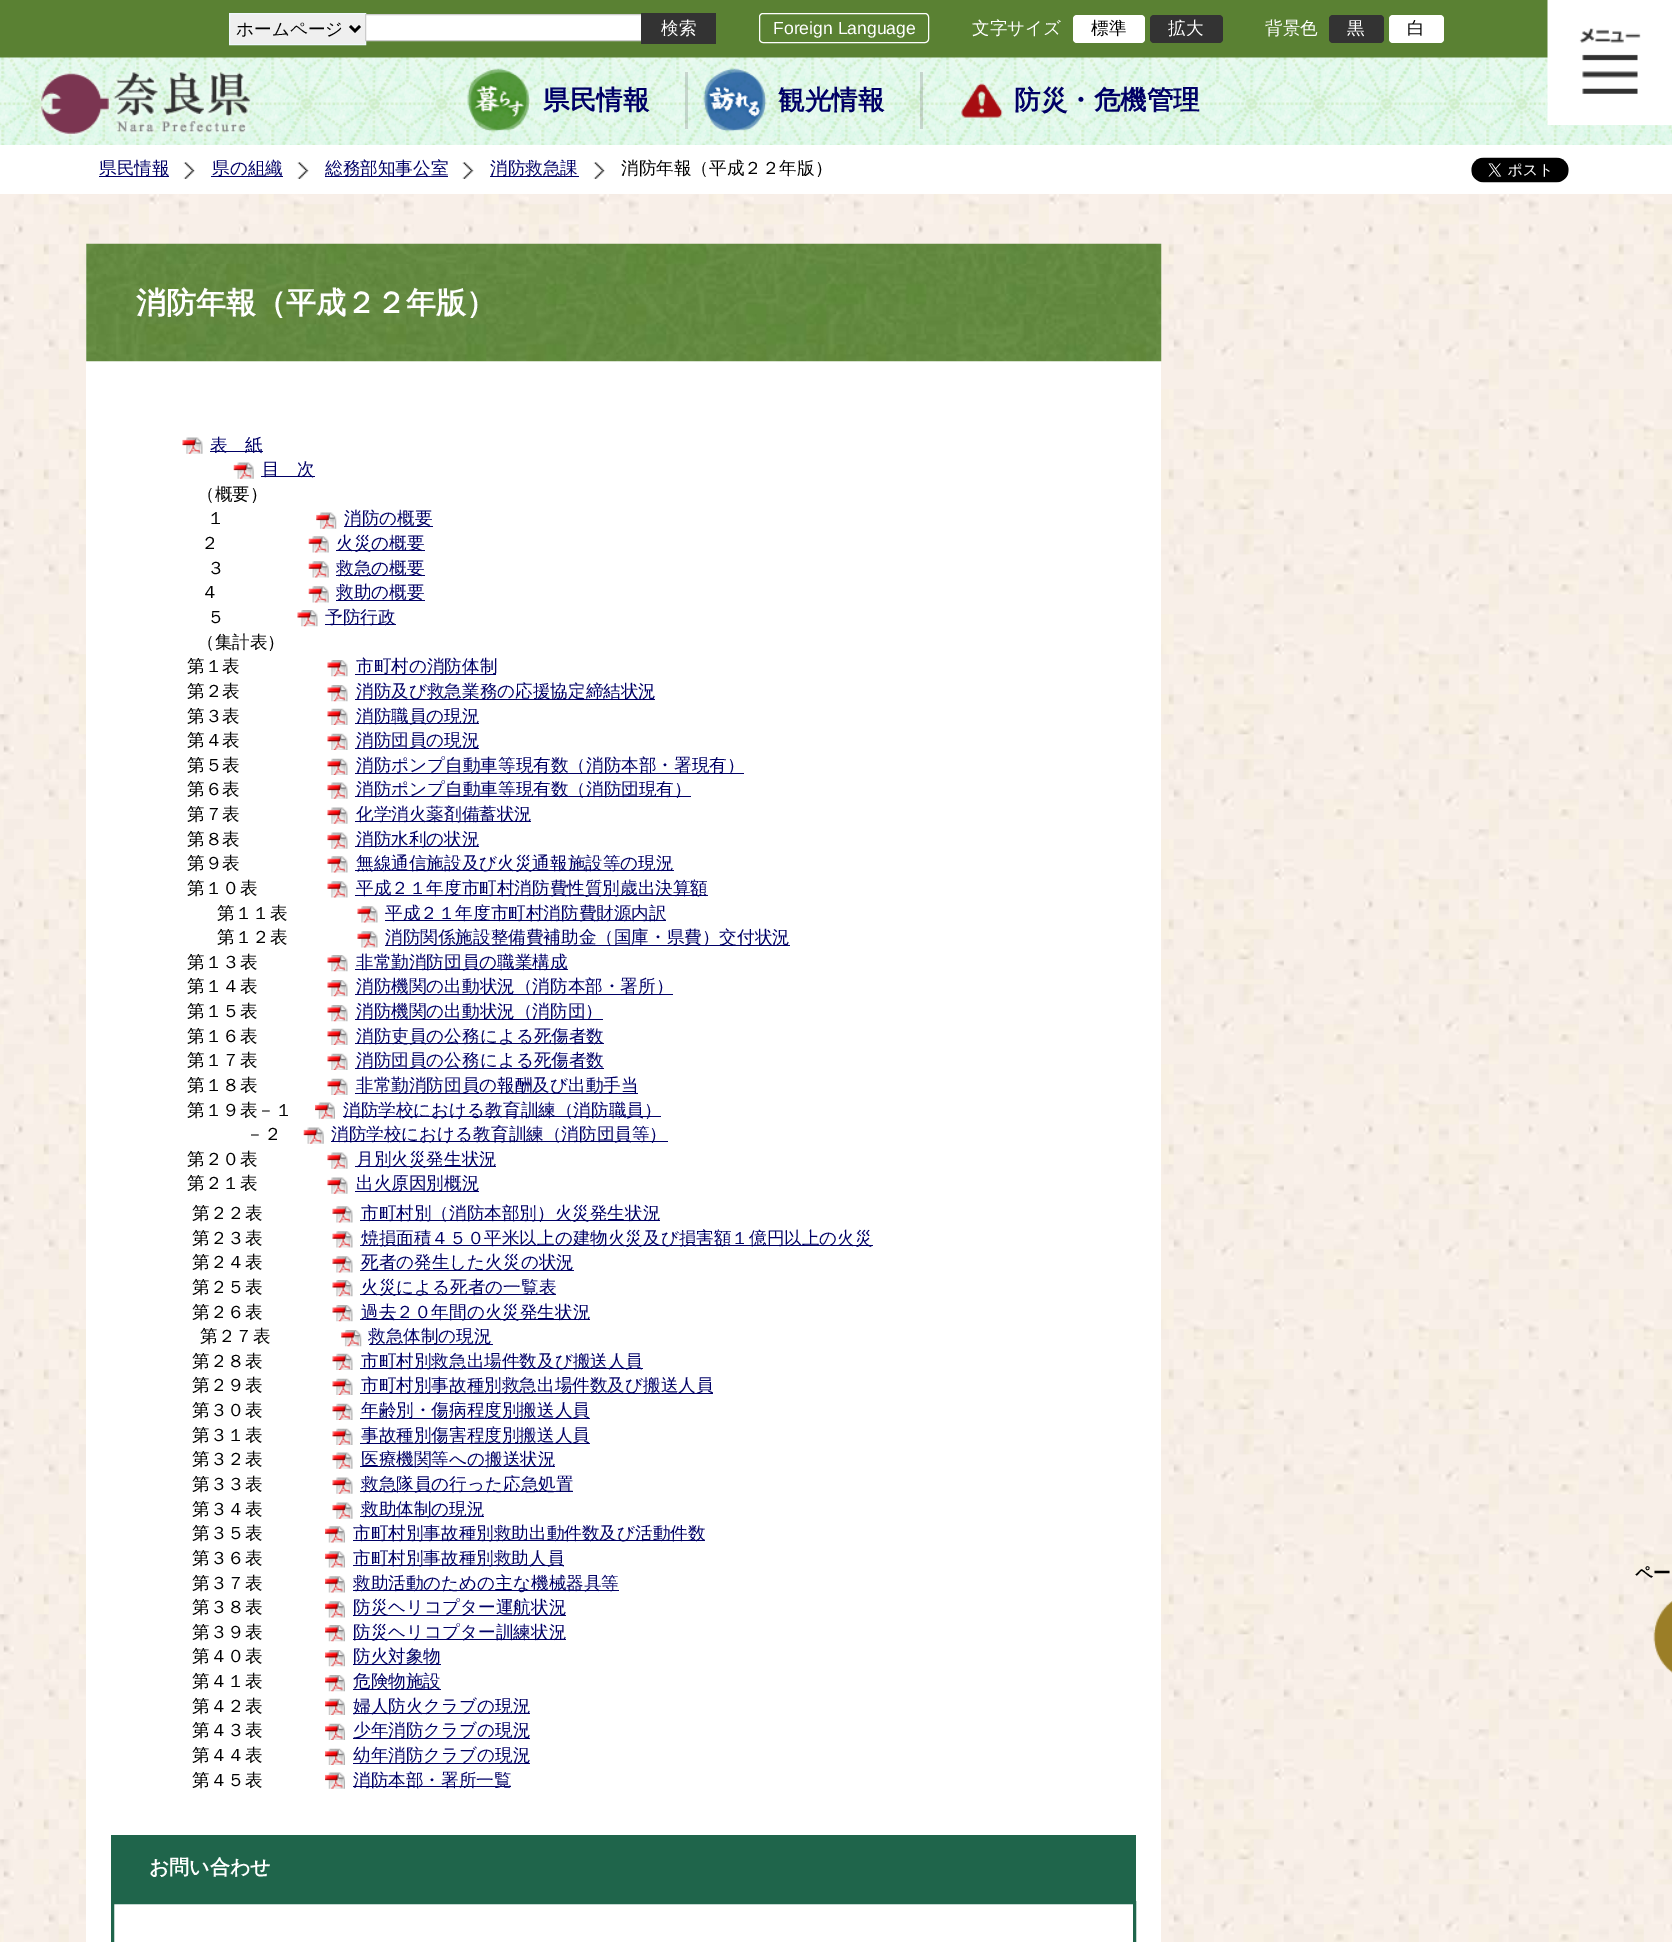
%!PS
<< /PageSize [1672 1942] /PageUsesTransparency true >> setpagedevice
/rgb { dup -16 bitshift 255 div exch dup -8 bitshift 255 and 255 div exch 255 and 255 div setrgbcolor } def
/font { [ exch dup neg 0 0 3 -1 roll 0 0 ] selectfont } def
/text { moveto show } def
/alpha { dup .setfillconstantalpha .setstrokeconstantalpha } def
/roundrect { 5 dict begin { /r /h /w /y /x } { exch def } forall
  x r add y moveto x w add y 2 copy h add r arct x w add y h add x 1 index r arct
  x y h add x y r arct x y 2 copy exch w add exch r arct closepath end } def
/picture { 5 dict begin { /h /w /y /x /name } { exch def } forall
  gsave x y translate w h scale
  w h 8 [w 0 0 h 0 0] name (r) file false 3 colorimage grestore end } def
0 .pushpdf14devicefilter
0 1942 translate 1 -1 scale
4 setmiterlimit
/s1 { /WenQuanYiZenHei-Medium 17.6 font 16#000000 rgb } def
/s2 { /WenQuanYiZenHei-Medium 17.6 font 16#FFFFFF rgb } def
/s3 { /LiberationSans-Regular 17.6 font 16#FFFFFF rgb } def
/s4 { /WenQuanYiZenHei-Bold 26.5 font 16#000066 rgb } def
/s5 { /WenQuanYiZenHei-Medium 17.6 font 16#000066 rgb } def
/s6 { /WenQuanYiZenHei-Bold 30 font 16#FFFFFF rgb } def
/s7 { /WenQuanYiZenHei-Bold 20 font 16#FFFFFF rgb } def
/s8 { /WenQuanYiZenHei-Bold 17.6 font 16#000000 rgb } def
16#FFFFFF rgb
0 0 1672 1942 rectfill
(pic1.raw) 0 194 1672 1748 picture
16#5A8133 rgb
0 0 1548 58 rectfill
16#EFEFEF rgb
229.5 13.5 moveto 365.5 13.5 lineto 365.5 44.5 lineto 229.5 44.5 lineto closepath gsave fill grestore
16#F0F8FF rgb
stroke
16#000000 rgb
2.5 setlinewidth
350 26 moveto 355 31 lineto 360 26 lineto stroke
s1
(ホームページ) 236 35 text
16#FFFFFF rgb
366 15 275 25 rectfill
16#CCCCCC rgb
1 setlinewidth
365.5 14.5 277 26 rectstroke
16#333333 rgb
641 13 75 31 rectfill
s2
(検索) 661 34 text
759.5 13.5 169 29 3.5 roundrect stroke
s3
(Foreign Language) 773 34 text
s2
(文字サイズ) 972 34 text
1073 15 72 28 4 roundrect fill
s1
(標準) 1091 34 text
16#333333 rgb
1150 15 73 28 4 roundrect fill
s2
(拡大) 1168 34 text
(背景色) 1265 34 text
16#333333 rgb
1329 15 55 28 4 roundrect fill
s2
(黒) 1347 34 text
1389 15 55 28 4 roundrect fill
s1
(白) 1407 34 text
(pic3.raw) 0 57 1672 88 picture
(pic2.raw) 39 70 213 66 picture
(pic4.raw) 467 68 63 64 picture
s4
(県民情報) 543 109 text
0.25 alpha
16#686868 rgb
685 72 3 57 rectfill
1 alpha
(pic5.raw) 703 68 64 64 picture
s4
(観光情報) 778 109 text
0.25 alpha
16#686868 rgb
920 72 3 57 rectfill
1 alpha
(pic6.raw) 961 83 42 35 picture
s4
(防災・危機管理) 1014 109 text
(pic7.raw) 1547 0 125 125 picture
99 176 70 1 rectfill
s5
(県民情報) 99 174 text
(pic8.raw) 183 162 12 17 picture
211 176 72 1 rectfill
(県の組織) 212 174 text
(pic9.raw) 297 162 12 17 picture
325 176 123 1 rectfill
(総務部知事公室) 325 174 text
(pic10.raw) 462 162 12 17 picture
490 176 89 1 rectfill
(消防救急課) 490 174 text
(pic8.raw) 593 162 12 17 picture
s1
(消防年報（平成２２年版）) 621 174 text
(pic11.raw) 1471 157 98 26 picture
16#FFFFFF rgb
86 244 1075 1698 rectfill
(pic12.raw) 86 243 1076 119 picture
s6
(消防年報（平成２２年版）) 136 313 text
(pic13.raw) 182 437 21 17 picture
16#000066 rgb
210 451 53 1 rectfill
s5
(表　紙) 210 451 text
(pic14.raw) 233 462 21 17 picture
261 476 54 1 rectfill
(目　次) 262 475 text
s1
(（概要）) 197 500 text
(１) 207 524 text
(pic15.raw) 316 512 21 17 picture
16#000066 rgb
344 526 89 1 rectfill
(消防の概要) 344 524 text
s1
(２) 201 549 text
(pic16.raw) 308 536 21 17 picture
16#000066 rgb
336 550 89 1 rectfill
(火災の概要) 336 549 text
s1
(３) 207 574 text
(pic16.raw) 308 561 21 17 picture
16#000066 rgb
336 575 89 1 rectfill
(救急の概要) 336 574 text
s1
(４) 201 598 text
(pic17.raw) 308 586 21 17 picture
16#000066 rgb
336 600 89 1 rectfill
(救助の概要) 336 598 text
s1
(５) 207 623 text
(pic18.raw) 297 610 21 17 picture
16#000066 rgb
325 624 71 1 rectfill
(予防行政) 325 623 text
s1
(（集計表）) 197 648 text
(第１表) 187 672 text
(pic18.raw) 327 660 21 17 picture
16#000066 rgb
355 674 141 1 rectfill
(市町村の消防体制) 356 672 text
s1
(第２表) 187 697 text
(pic18.raw) 327 685 21 17 picture
16#000066 rgb
355 699 300 1 rectfill
(消防及び救急業務の応援協定締結状況) 356 697 text
s1
(第３表) 187 722 text
(pic19.raw) 327 708 21 17 picture
16#000066 rgb
355 723 124 1 rectfill
(消防職員の現況) 356 722 text
s1
(第４表) 187 746 text
(pic19.raw) 327 733 21 17 picture
16#000066 rgb
355 748 124 1 rectfill
(消防団員の現況) 356 746 text
s1
(第５表) 187 771 text
(pic19.raw) 327 758 21 17 picture
16#000066 rgb
355 773 389 1 rectfill
(消防ポンプ自動車等現有数（消防本部・署現有）) 356 771 text
s1
(第６表) 187 795 text
(pic13.raw) 327 782 21 17 picture
16#000066 rgb
355 796 336 1 rectfill
(消防ポンプ自動車等現有数（消防団現有）) 356 795 text
s1
(第７表) 187 820 text
(pic13.raw) 327 807 21 17 picture
16#000066 rgb
355 821 176 1 rectfill
(化学消火薬剤備蓄状況) 356 820 text
s1
(第８表) 187 845 text
(pic13.raw) 327 832 21 17 picture
16#000066 rgb
355 846 124 1 rectfill
(消防水利の状況) 356 845 text
s1
(第９表) 187 869 text
(pic20.raw) 327 856 21 17 picture
16#000066 rgb
355 870 319 1 rectfill
(無線通信施設及び火災通報施設等の現況) 356 869 text
s1
(第１０表) 187 894 text
(pic20.raw) 327 881 21 17 picture
16#000066 rgb
355 895 353 1 rectfill
(平成２１年度市町村消防費性質別歳出決算額) 356 894 text
s1
(第１１表) 217 919 text
(pic21.raw) 357 906 21 17 picture
16#000066 rgb
385 920 281 1 rectfill
(平成２１年度市町村消防費財源内訳) 385 919 text
s1
(第１２表) 217 943 text
(pic21.raw) 357 931 21 17 picture
16#000066 rgb
385 945 405 1 rectfill
(消防関係施設整備費補助金（国庫・県費）交付状況) 385 943 text
s1
(第１３表) 187 968 text
(pic18.raw) 327 955 21 17 picture
16#000066 rgb
355 969 213 1 rectfill
(非常勤消防団員の職業構成) 356 968 text
s1
(第１４表) 187 992 text
(pic18.raw) 327 980 21 17 picture
16#000066 rgb
355 994 318 1 rectfill
(消防機関の出動状況（消防本部・署所）) 356 992 text
s1
(第１５表) 187 1017 text
(pic18.raw) 327 1005 21 17 picture
16#000066 rgb
355 1019 248 1 rectfill
(消防機関の出動状況（消防団）) 356 1017 text
s1
(第１６表) 187 1042 text
(pic19.raw) 327 1028 21 17 picture
16#000066 rgb
355 1043 249 1 rectfill
(消防吏員の公務による死傷者数) 356 1042 text
s1
(第１７表) 187 1066 text
(pic19.raw) 327 1053 21 17 picture
16#000066 rgb
355 1068 249 1 rectfill
(消防団員の公務による死傷者数) 356 1066 text
s1
(第１８表) 187 1091 text
(pic19.raw) 327 1078 21 17 picture
16#000066 rgb
355 1093 283 1 rectfill
(非常勤消防団員の報酬及び出動手当) 356 1091 text
s1
(第１９表－１) 187 1116 text
(pic22.raw) 315 1102 20 17 picture
16#000066 rgb
343 1116 318 1 rectfill
(消防学校における教育訓練（消防職員）) 343 1116 text
s1
(－２) 246 1140 text
(pic14.raw) 303 1127 21 17 picture
16#000066 rgb
331 1141 337 1 rectfill
(消防学校における教育訓練（消防団員等）) 331 1140 text
s1
(第２０表) 187 1165 text
(pic13.raw) 327 1152 21 17 picture
16#000066 rgb
355 1166 141 1 rectfill
(月別火災発生状況) 356 1165 text
s1
(第２１表) 187 1189 text
(pic13.raw) 327 1177 21 17 picture
16#000066 rgb
355 1191 124 1 rectfill
(出火原因別概況) 356 1189 text
s1
(第２２表) 192 1219 text
(pic20.raw) 332 1206 21 17 picture
16#000066 rgb
360 1220 300 1 rectfill
(市町村別（消防本部別）火災発生状況) 361 1219 text
s1
(第２３表) 192 1244 text
(pic20.raw) 332 1231 21 17 picture
16#000066 rgb
360 1245 513 1 rectfill
(焼損面積４５０平米以上の建物火災及び損害額１億円以上の火災) 361 1244 text
s1
(第２４表) 192 1268 text
(pic20.raw) 332 1256 21 17 picture
16#000066 rgb
360 1270 214 1 rectfill
(死者の発生した火災の状況) 361 1268 text
s1
(第２５表) 192 1293 text
(pic18.raw) 332 1280 21 17 picture
16#000066 rgb
360 1294 196 1 rectfill
(火災による死者の一覧表) 361 1293 text
s1
(第２６表) 192 1318 text
(pic18.raw) 332 1305 21 17 picture
16#000066 rgb
360 1319 230 1 rectfill
(過去２０年間の火災発生状況) 361 1318 text
s1
(第２７表) 200 1342 text
(pic23.raw) 341 1330 21 17 picture
16#000066 rgb
369 1344 124 1 rectfill
(救急体制の現況) 368 1342 text
s1
(第２８表) 192 1367 text
(pic19.raw) 332 1353 21 17 picture
16#000066 rgb
360 1368 283 1 rectfill
(市町村別救急出場件数及び搬送人員) 361 1367 text
s1
(第２９表) 192 1391 text
(pic19.raw) 332 1378 21 17 picture
16#000066 rgb
360 1393 353 1 rectfill
(市町村別事故種別救急出場件数及び搬送人員) 361 1391 text
s1
(第３０表) 192 1416 text
(pic19.raw) 332 1403 21 17 picture
16#000066 rgb
360 1418 230 1 rectfill
(年齢別・傷病程度別搬送人員) 361 1416 text
s1
(第３１表) 192 1441 text
(pic19.raw) 332 1428 21 17 picture
16#000066 rgb
360 1443 230 1 rectfill
(事故種別傷害程度別搬送人員) 361 1441 text
s1
(第３２表) 192 1465 text
(pic13.raw) 332 1452 21 17 picture
16#000066 rgb
360 1466 195 1 rectfill
(医療機関等への搬送状況) 361 1465 text
s1
(第３３表) 192 1490 text
(pic13.raw) 332 1477 21 17 picture
16#000066 rgb
360 1491 213 1 rectfill
(救急隊員の行った応急処置) 361 1490 text
s1
(第３４表) 192 1515 text
(pic13.raw) 332 1502 21 17 picture
16#000066 rgb
360 1516 124 1 rectfill
(救助体制の現況) 361 1515 text
s1
(第３５表) 192 1539 text
(pic24.raw) 325 1526 20 17 picture
16#000066 rgb
353 1540 352 1 rectfill
(市町村別事故種別救助出動件数及び活動件数) 353 1539 text
s1
(第３６表) 192 1564 text
(pic25.raw) 325 1551 20 17 picture
16#000066 rgb
353 1565 211 1 rectfill
(市町村別事故種別救助人員) 353 1564 text
s1
(第３７表) 192 1589 text
(pic25.raw) 325 1576 20 17 picture
16#000066 rgb
353 1590 266 1 rectfill
(救助活動のための主な機械器具等) 353 1589 text
s1
(第３８表) 192 1613 text
(pic25.raw) 325 1601 20 17 picture
16#000066 rgb
353 1615 213 1 rectfill
(防災ヘリコプター運航状況) 353 1613 text
s1
(第３９表) 192 1638 text
(pic26.raw) 325 1625 20 17 picture
16#000066 rgb
353 1639 213 1 rectfill
(防災ヘリコプター訓練状況) 353 1638 text
s1
(第４０表) 192 1662 text
(pic26.raw) 325 1650 20 17 picture
16#000066 rgb
353 1664 88 1 rectfill
(防火対象物) 353 1662 text
s1
(第４１表) 192 1687 text
(pic26.raw) 325 1675 20 17 picture
16#000066 rgb
353 1689 88 1 rectfill
(危険物施設) 353 1687 text
s1
(第４２表) 192 1712 text
(pic27.raw) 325 1698 20 17 picture
16#000066 rgb
353 1713 177 1 rectfill
(婦人防火クラブの現況) 353 1712 text
s1
(第４３表) 192 1736 text
(pic27.raw) 325 1723 20 17 picture
16#000066 rgb
353 1738 177 1 rectfill
(少年消防クラブの現況) 353 1736 text
s1
(第４４表) 192 1761 text
(pic27.raw) 325 1748 20 17 picture
16#000066 rgb
353 1763 177 1 rectfill
(幼年消防クラブの現況) 353 1761 text
s1
(第４５表) 192 1786 text
(pic22.raw) 325 1772 20 17 picture
16#000066 rgb
353 1786 158 1 rectfill
(消防本部・署所一覧) 353 1786 text
16#1F654B rgb
111 1835 1025 66 rectfill
s7
(お問い合わせ) 149 1874 text
16#1F654B rgb
3 setlinewidth
112.5 1902.5 1022 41 rectstroke
(pic28.raw) 1653 1601 19 72 picture
s8
(ペー) 1635 1579 text
.poppdf14devicefilter showpage
